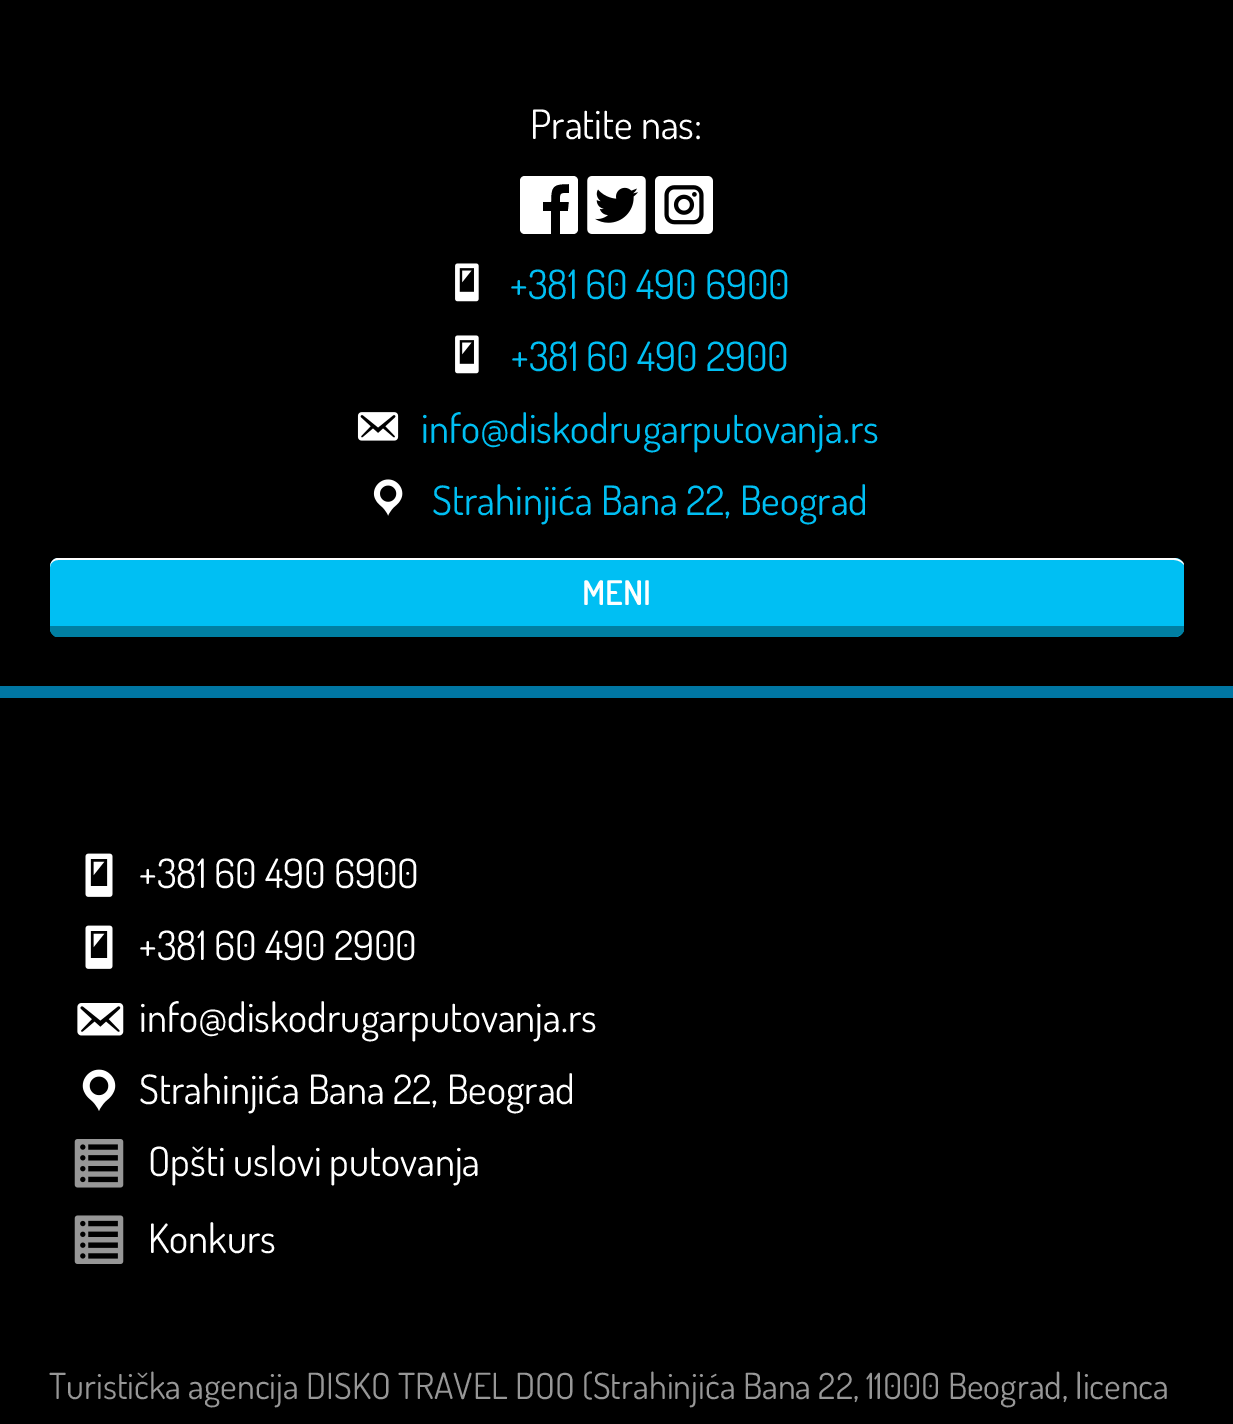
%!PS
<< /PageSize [1233 1424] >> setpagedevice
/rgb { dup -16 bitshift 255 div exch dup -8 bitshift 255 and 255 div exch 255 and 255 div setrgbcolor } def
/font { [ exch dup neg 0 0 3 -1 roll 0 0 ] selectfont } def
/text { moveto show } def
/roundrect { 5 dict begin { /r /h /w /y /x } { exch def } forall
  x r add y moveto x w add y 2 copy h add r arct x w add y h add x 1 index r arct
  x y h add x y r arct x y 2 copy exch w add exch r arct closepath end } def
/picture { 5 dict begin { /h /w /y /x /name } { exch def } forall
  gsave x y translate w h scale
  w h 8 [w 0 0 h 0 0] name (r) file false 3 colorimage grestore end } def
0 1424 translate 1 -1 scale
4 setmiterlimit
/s1 { /Dosis-Regular 40.5 font 16#FFFFFF rgb } def
/s2 { /Dosis-Regular 40.5 font 16#00BFF3 rgb } def
/s3 { /Dosis-SemiBold 34 font 16#FFFFFF rgb } def
/s4 { /Dosis-Regular 36 font 16#979797 rgb } def
16#000000 rgb
0 0 1233 1424 rectfill
s1
(Pratite nas:) 530 139 text
525 176 moveto 522 176 520 178 520 181 curveto 520 229 lineto 520 232 522 234 525 234 curveto 551 234 lineto 551 211 lineto 543 211 lineto 543 202 lineto 551 202 lineto 551 186 553 184 569 184 curveto 569 193 lineto 560 193 560 193 560 202 curveto 569 202 lineto 568 211 lineto 560 211 lineto 560 234 lineto 573 234 lineto 576 234 578 232 578 229 curveto 578 181 lineto 578 178 576 176 573 176 curveto closepath fill
(pic1.raw) 587 176 59 58 picture
(pic2.raw) 655 176 58 58 picture
(pic3.raw) 455 263 24 39 picture
s2
(+381 60 490 6900) 510 299 text
(pic3.raw) 455 335 24 39 picture
(+381 60 490 2900) 511 371 text
(pic4.raw) 357 412 42 29 picture
(info@diskodrugarputovanja.rs) 421 443 text
(pic5.raw) 373 479 30 37 picture
(Strahinjića Bana 22, Beograd) 432 515 text
50 558 1134 79 9 roundrect fill
16#FFFFFF rgb
58 558 moveto 1174 558 lineto 1177 558 1184 561 1184 565 curveto 1182 562 1178 560 1174 560 curveto 58 560 lineto 54 560 50 563 50 567 curveto 50 562 54 558 58 558 curveto closepath fill
16#007FA2 rgb
1184 626 moveto 1184 631 lineto 1182 634 1179 636 1176 637 curveto 56 637 lineto 53 636 50 632 50 628 curveto 50 626 lineto closepath fill
s3
(MENI) 582 605 text
16#0076A3 rgb
0 686 1233 12 rectfill
(pic6.raw) 85 853 28 44 picture
s1
(+381 60 490 6900) 139 888 text
(pic6.raw) 85 925 28 44 picture
(+381 60 490 2900) 139 960 text
(pic7.raw) 77 1003 47 33 picture
(info@diskodrugarputovanja.rs) 139 1032 text
(pic8.raw) 82 1069 34 42 picture
(Strahinjića Bana 22, Beograd) 139 1104 text
(pic9.raw) 74 1139 50 49 picture
(Opšti uslovi putovanja) 148 1176 text
(pic10.raw) 74 1215 50 49 picture
(Konkurs) 148 1253 text
s4
(Turistička agencija DISKO TRAVEL DOO \(Strahinjića Bana 22, 11000 Beograd, licenca) 49 1399 text
showpage
